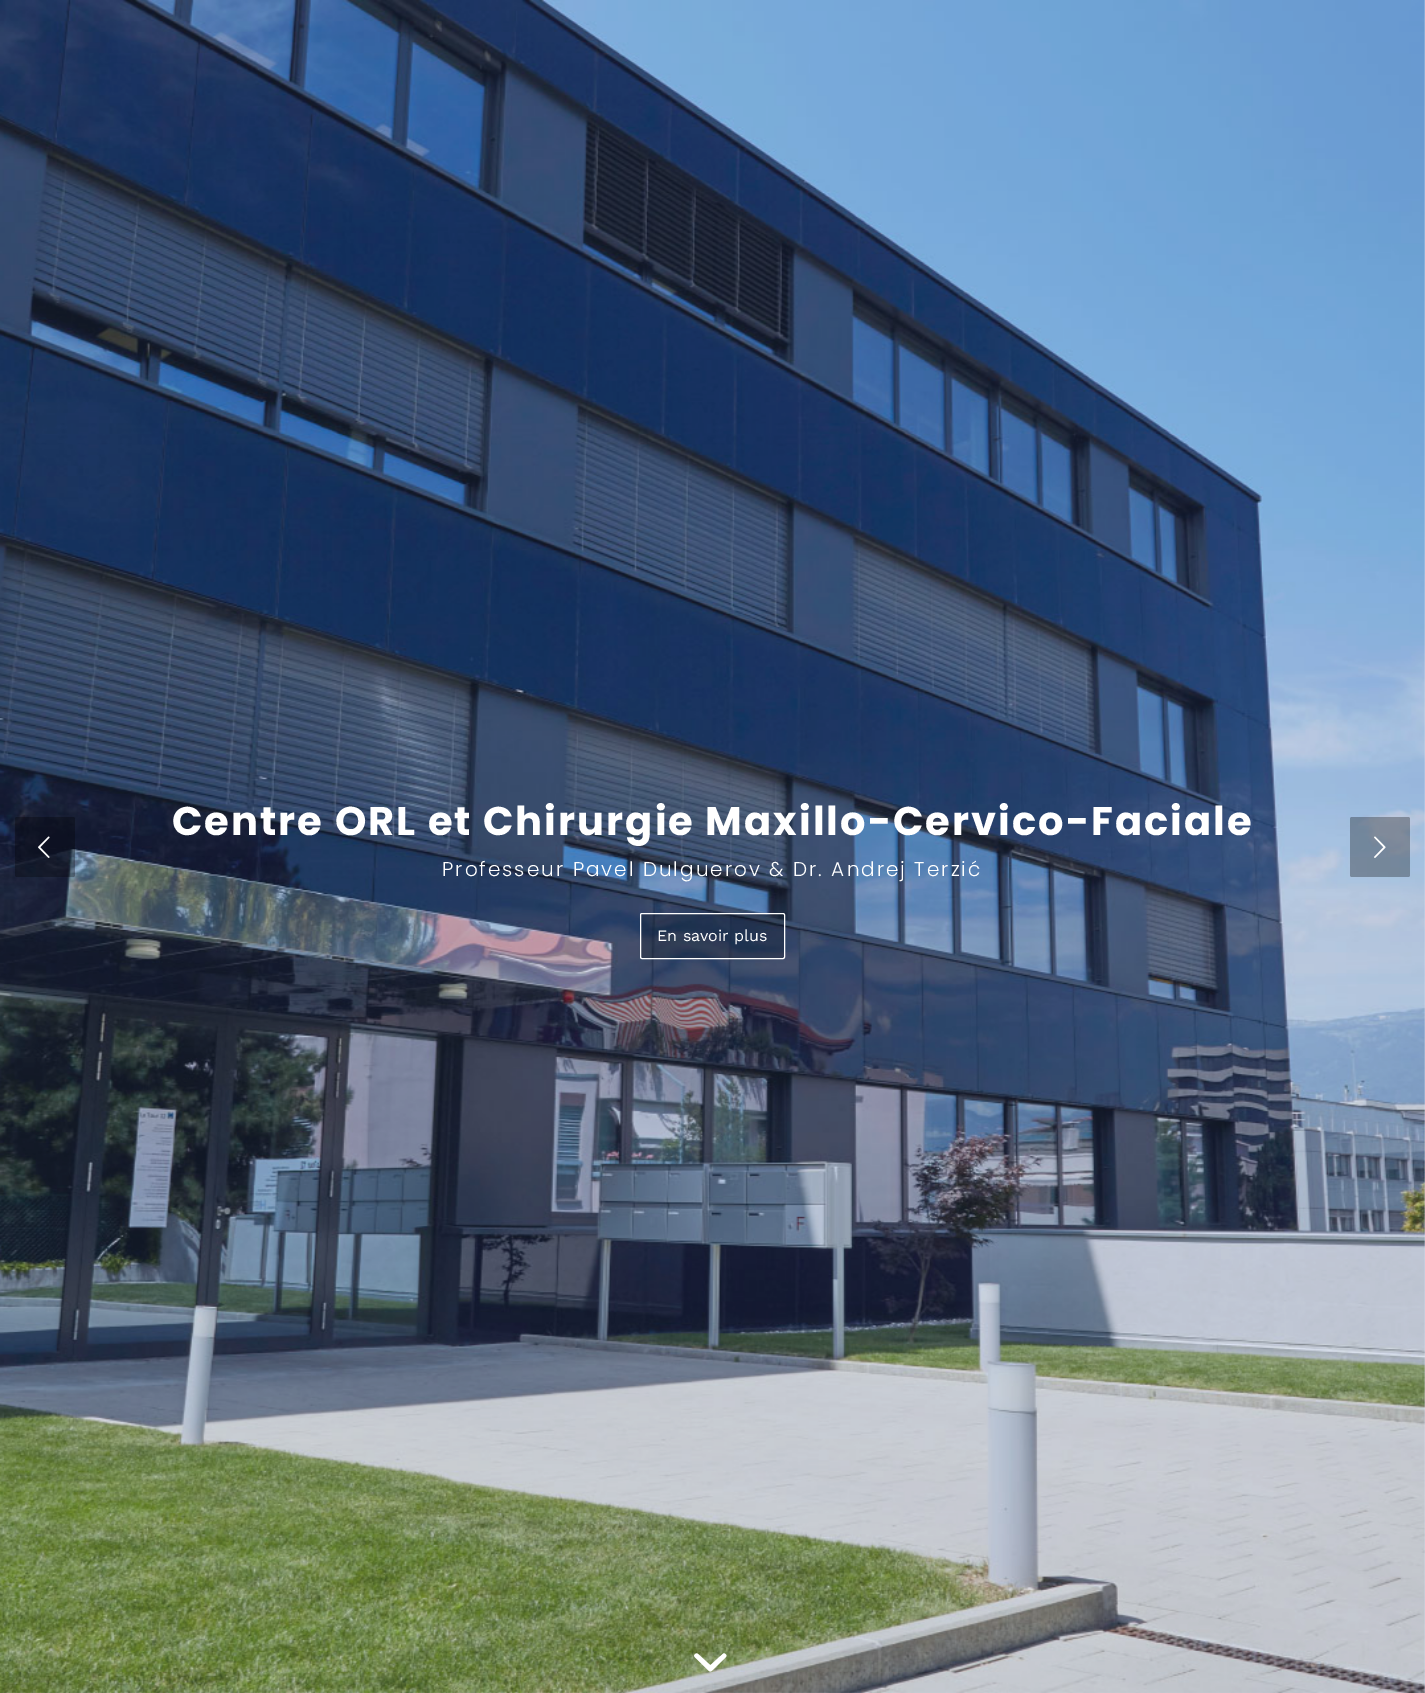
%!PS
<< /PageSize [1425 1693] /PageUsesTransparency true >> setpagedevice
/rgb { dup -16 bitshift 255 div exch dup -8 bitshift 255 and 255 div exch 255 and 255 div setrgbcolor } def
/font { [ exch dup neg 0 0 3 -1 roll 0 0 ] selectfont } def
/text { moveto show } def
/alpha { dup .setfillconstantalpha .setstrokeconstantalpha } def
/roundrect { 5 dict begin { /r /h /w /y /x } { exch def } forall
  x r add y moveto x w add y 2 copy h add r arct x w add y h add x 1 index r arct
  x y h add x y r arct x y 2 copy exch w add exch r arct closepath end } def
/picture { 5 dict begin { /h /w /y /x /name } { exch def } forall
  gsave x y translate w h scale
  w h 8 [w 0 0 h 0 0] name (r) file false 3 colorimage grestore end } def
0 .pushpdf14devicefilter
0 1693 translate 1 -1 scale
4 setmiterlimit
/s1 { /WorkSans-Regular 16 font 16#FFFFFF rgb } def
16#D7DDEB rgb
0 0 1425 1693 rectfill
(pic1.raw) 0 0 1425 1693 picture
/Poppins-Bold 40 font
16#FFFFFF rgb
172 835 moveto 2 0 (Centre ORL et Chirurgie Maxillo-Cervico-Faciale) ashow
/Poppins-Light 20 font
442 876 moveto 2 0 (Professeur Pavel Dulguerov & Dr. Andrej Terzić) ashow
0.2 alpha
16#000000 rgb
640.5 913.5 144 45 1.5 roundrect fill
1 alpha
16#FFFFFF rgb
640.5 913.5 144 45 1.5 roundrect stroke
s1
(En savoir plus) 657 941 text
0.3 alpha
16#000000 rgb
15 817 60 60 2 roundrect fill
1 alpha
(pic2.raw) 38 836 12 22 picture
0.3 alpha
1350 817 60 60 2 roundrect fill
1 alpha
(pic3.raw) 1374 836 12 22 picture
(pic4.raw) 694 1653 33 19 picture
.poppdf14devicefilter showpage
